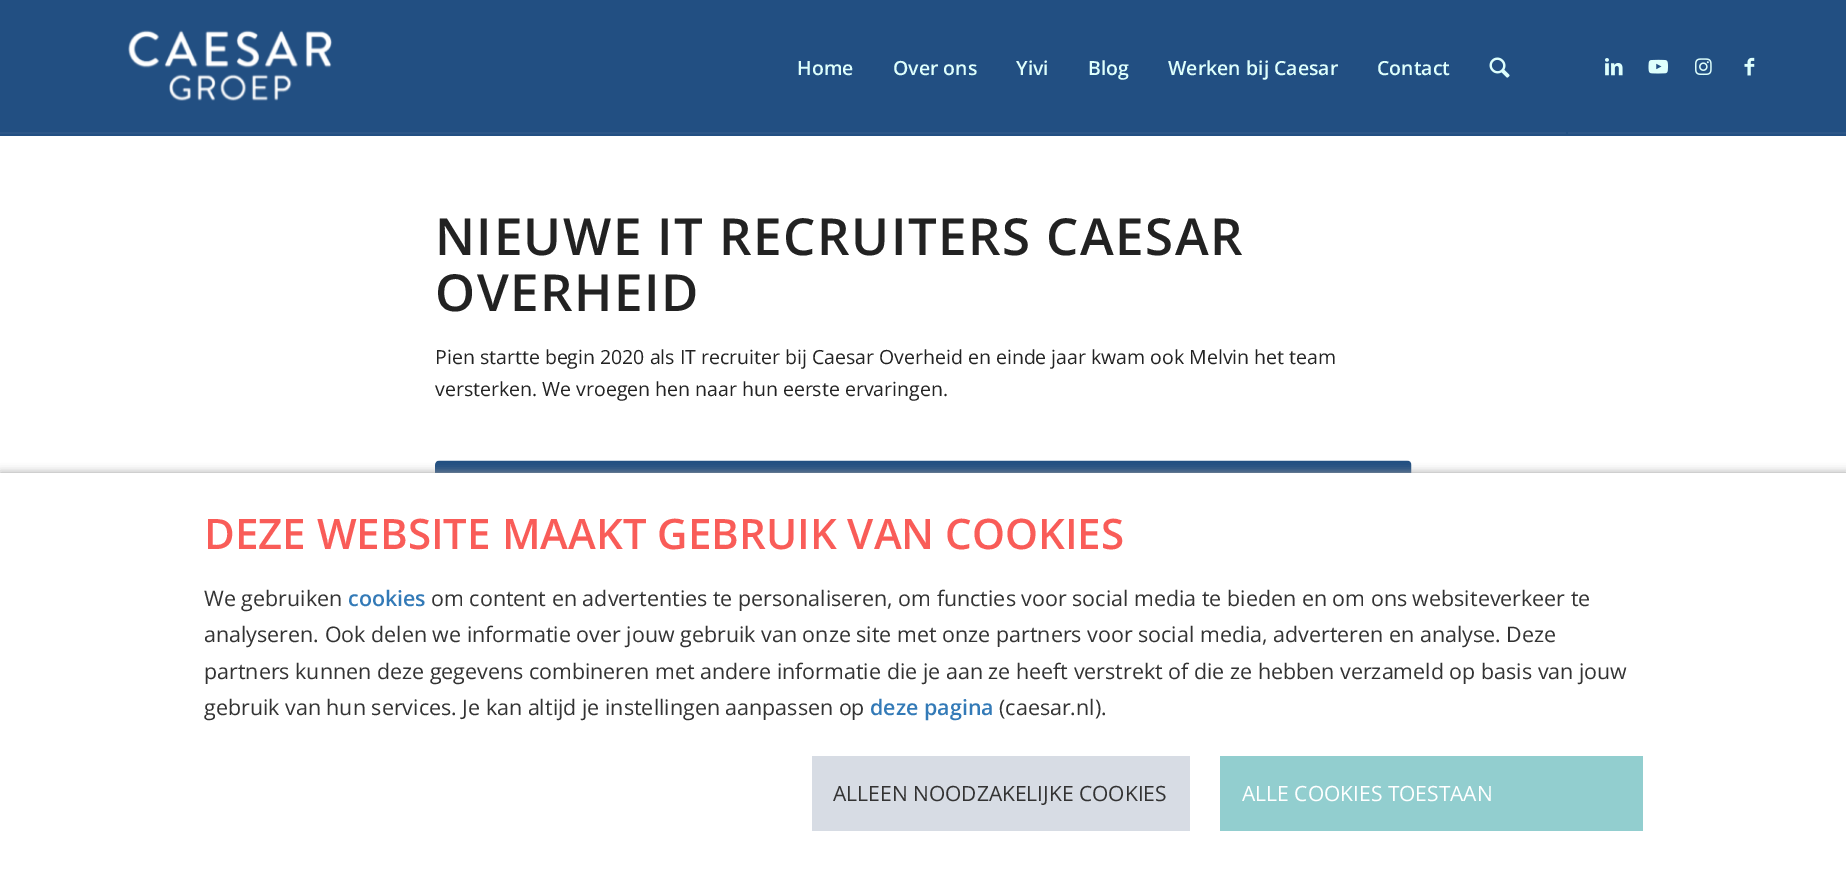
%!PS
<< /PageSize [1846 875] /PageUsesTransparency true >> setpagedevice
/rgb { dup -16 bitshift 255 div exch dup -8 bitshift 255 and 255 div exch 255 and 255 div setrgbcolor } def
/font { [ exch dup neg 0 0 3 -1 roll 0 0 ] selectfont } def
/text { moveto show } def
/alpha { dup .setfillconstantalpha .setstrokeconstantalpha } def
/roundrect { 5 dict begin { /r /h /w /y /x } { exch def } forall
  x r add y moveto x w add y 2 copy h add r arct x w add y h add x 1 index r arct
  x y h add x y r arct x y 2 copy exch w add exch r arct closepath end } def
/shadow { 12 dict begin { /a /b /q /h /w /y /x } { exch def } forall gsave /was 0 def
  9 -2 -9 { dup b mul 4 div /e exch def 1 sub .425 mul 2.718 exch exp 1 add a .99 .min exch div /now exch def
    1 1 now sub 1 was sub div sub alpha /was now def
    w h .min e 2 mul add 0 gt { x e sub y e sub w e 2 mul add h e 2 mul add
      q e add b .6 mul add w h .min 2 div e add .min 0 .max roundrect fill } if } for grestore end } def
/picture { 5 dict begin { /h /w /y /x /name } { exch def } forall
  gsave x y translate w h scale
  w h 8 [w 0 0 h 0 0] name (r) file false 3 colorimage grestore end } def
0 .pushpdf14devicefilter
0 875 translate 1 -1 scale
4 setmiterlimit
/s1 { /OpenSans-SemiBold 19.5 font 16#DEFFFC rgb } def
/s2 { /OpenSans-Regular 19.5 font 16#222222 rgb } def
/s3 { /OpenSans-SemiBold 42 font 16#F95C58 rgb } def
/s4 { /OpenSans-Regular 21.45 font 16#333333 rgb } def
/s5 { /OpenSans-SemiBold 21.45 font 16#337AB7 rgb } def
/s6 { /OpenSans-Regular 21 font 16#333333 rgb } def
/s7 { /OpenSans-Regular 21 font 16#FFFFFF rgb } def
16#224F82 rgb
0 0 1846 875 rectfill
(pic1.raw) 128 30 205 71 picture
16#2C5687 rgb
0 132 1846 2 rectfill
16#224F82 rgb
1566 132 2 2 rectfill
s1
(Home) 797 75 text
(Over ons) 893 75 text
(Yivi) 1016 75 text
(Blog) 1088 75 text
(Werken bij Caesar) 1168 75 text
(Contact) 1377 75 text
(pic2.raw) 1489 57 21 21 picture
(pic3.raw) 1605 58 18 18 picture
(pic4.raw) 1648 59 20 15 picture
(pic5.raw) 1695 58 17 18 picture
(pic6.raw) 1744 57 11 19 picture
16#FFFFFF rgb
0 136 1846 337 rectfill
/OpenSans-SemiBold 51 font
16#222222 rgb
435 255 moveto 1.5 0 (NIEUWE IT RECRUITERS CAESAR) ashow
435 311 moveto 1.5 0 (OVERHEID) ashow
s2
(Pien startte begin 2020 als IT recruiter bij Caesar Overheid en einde jaar kwam ook Melvin het team) 435 364 text
(versterken. We vroegen hen naar hun eerste ervaringen.) 435 396 text
(pic7.raw) 435 460 977 13 picture
16#9D9D9D rgb
0 473 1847 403 0 4.5 1 shadow
16#FFFFFF rgb
0 473 1846 402 rectfill
s3
(DEZE WEBSITE MAAKT GEBRUIK VAN COOKIES) 204 549 text
s4
(We gebruiken) 204 606 text
s5
(cookies) 348 606 text
s4
(om content en advertenties te personaliseren, om functies voor social media te bieden en om ons websiteverkeer te) 431 606 text
(analyseren. Ook delen we informatie over jouw gebruik van onze site met onze partners voor social media, adverteren en analyse. Deze) 204 642 text
(partners kunnen deze gegevens combineren met andere informatie die je aan ze heeft verstrekt of die ze hebben verzameld op basis van jouw) 204 679 text
(gebruik van hun services. Je kan altijd je instellingen aanpassen op) 204 715 text
s5
(deze pagina) 870 715 text
s4
(\(caesar.nl\).) 999 715 text
16#D7DCE4 rgb
812 756 378 75 rectfill
s6
(ALLEEN NOODZAKELIJKE COOKIES) 833 801 text
16#92CECF rgb
1220 756 423 75 rectfill
s7
(ALLE COOKIES TOESTAAN) 1242 801 text
.poppdf14devicefilter showpage
